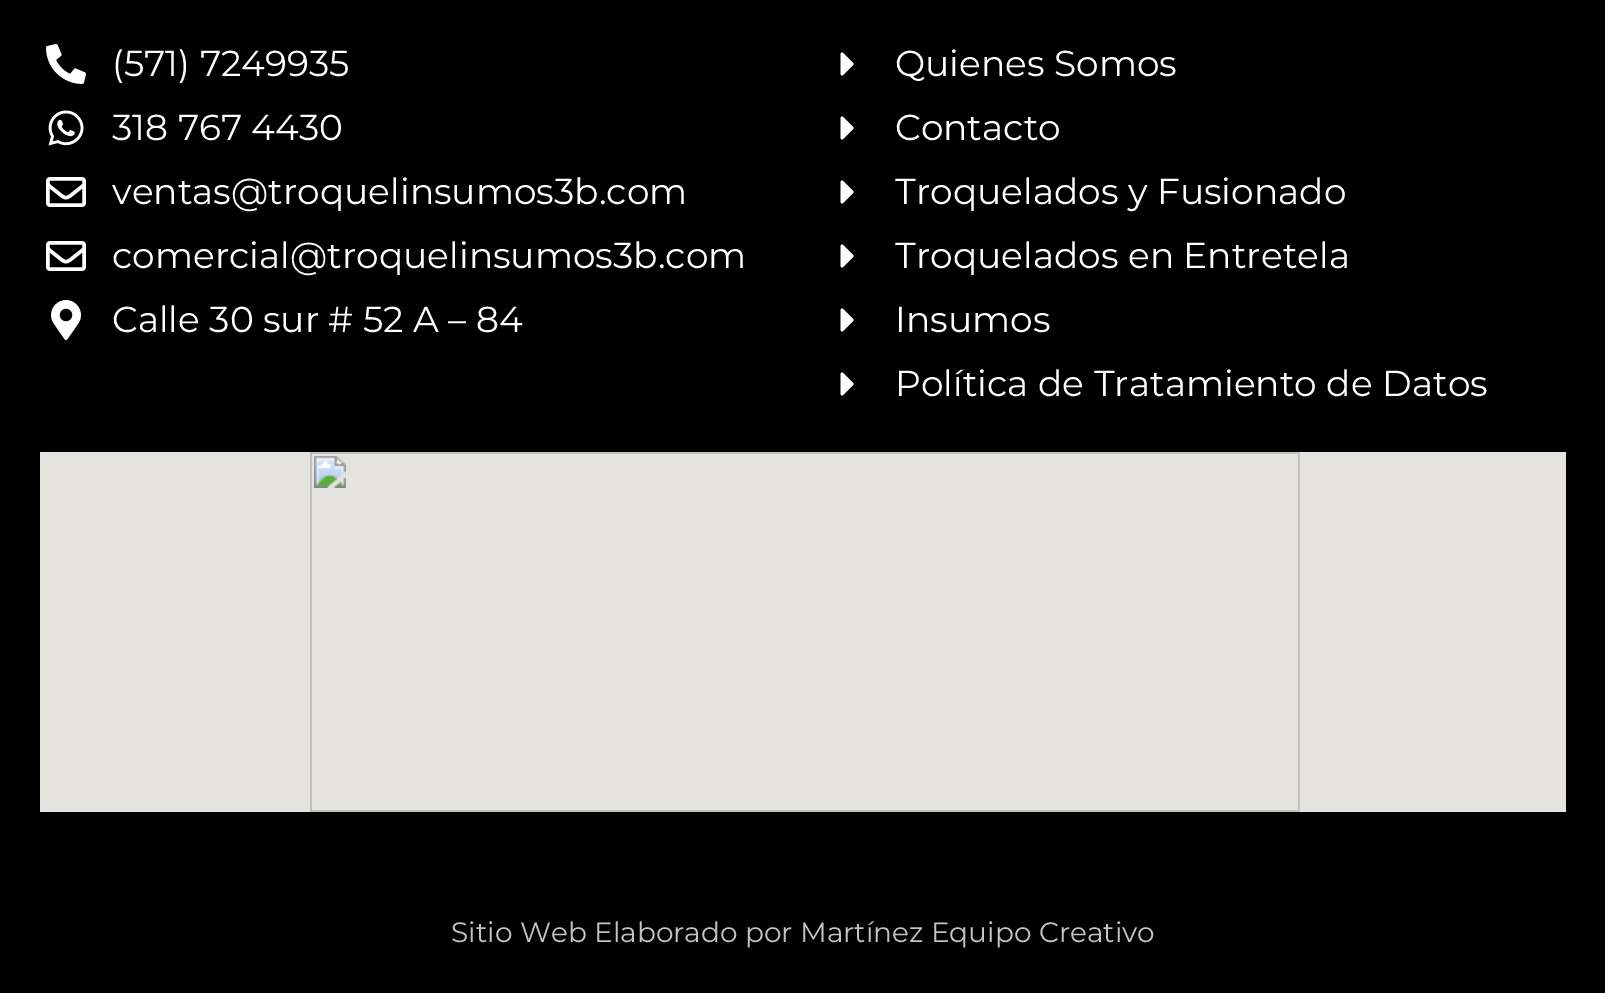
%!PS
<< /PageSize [1605 993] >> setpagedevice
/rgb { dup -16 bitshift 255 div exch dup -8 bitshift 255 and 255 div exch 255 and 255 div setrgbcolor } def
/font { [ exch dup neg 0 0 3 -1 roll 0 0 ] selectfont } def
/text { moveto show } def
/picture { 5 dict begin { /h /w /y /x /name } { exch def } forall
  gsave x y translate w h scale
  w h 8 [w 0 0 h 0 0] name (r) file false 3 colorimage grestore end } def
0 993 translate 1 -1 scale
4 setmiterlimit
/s1 { /Montserrat-Regular 36 font 16#FFFFFF rgb } def
/s2 { /Montserrat-Regular 28 font 16#C4C4C4 rgb } def
16#000000 rgb
0 0 1605 993 rectfill
(pic1.raw) 46 44 40 40 picture
s1
(\(571\) 7249935) 112 76 text
(pic2.raw) 48 110 36 36 picture
(318 767 4430) 112 140 text
(pic3.raw) 46 177 40 30 picture
(ventas@troquelinsumos3b.com) 112 204 text
(pic3.raw) 46 241 40 30 picture
(comercial@troquelinsumos3b.com) 112 268 text
(pic4.raw) 51 300 30 40 picture
(Calle 30 sur # 52 A – 84) 112 332 text
(pic5.raw) 840 52 14 24 picture
(Quienes Somos) 895 76 text
(pic5.raw) 840 116 14 24 picture
(Contacto) 895 140 text
(pic5.raw) 840 180 14 24 picture
(Troquelados y Fusionado) 895 204 text
(pic5.raw) 840 244 14 24 picture
(Troquelados en Entretela) 895 268 text
(pic5.raw) 840 308 14 24 picture
(Insumos) 895 332 text
(pic5.raw) 840 372 14 24 picture
(Política de Tratamiento de Datos) 895 396 text
(pic6.raw) 40 452 1526 360 picture
s2
(Sitio Web Elaborado por Martínez Equipo Creativo) 451 942 text
showpage
